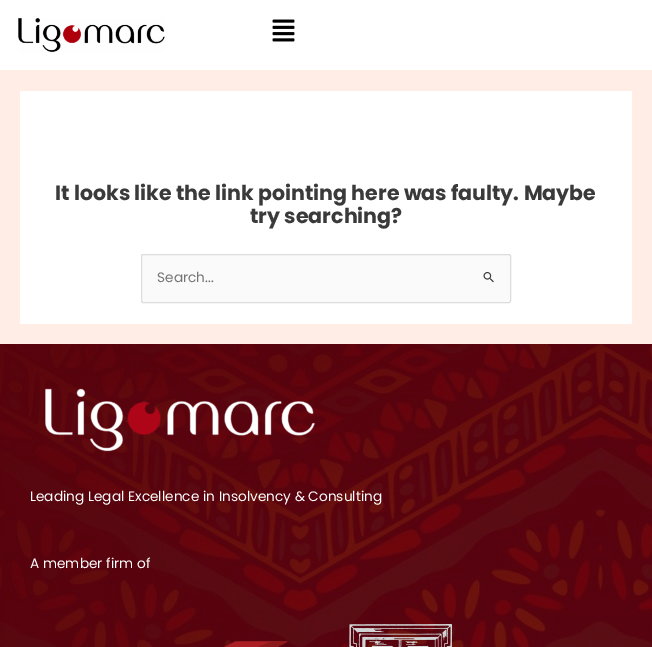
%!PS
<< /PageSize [652 647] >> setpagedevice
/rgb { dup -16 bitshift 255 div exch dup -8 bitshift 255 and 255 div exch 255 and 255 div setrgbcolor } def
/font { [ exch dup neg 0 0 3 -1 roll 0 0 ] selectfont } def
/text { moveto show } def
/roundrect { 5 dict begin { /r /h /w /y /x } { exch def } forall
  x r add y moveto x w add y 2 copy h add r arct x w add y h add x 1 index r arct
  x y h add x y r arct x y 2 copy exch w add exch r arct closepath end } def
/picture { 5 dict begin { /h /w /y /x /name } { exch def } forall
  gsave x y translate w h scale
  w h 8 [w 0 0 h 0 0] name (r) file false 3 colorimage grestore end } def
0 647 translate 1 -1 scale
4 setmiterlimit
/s1 { /Poppins-Bold 20.5 font 16#3A3A3A rgb } def
/s2 { /Poppins-Regular 13.7 font 16#757575 rgb } def
/s3 { /Poppins-Regular 13.7 font 16#FFFFFF rgb } def
16#FFEDE6 rgb
0 0 652 647 rectfill
16#FFFFFF rgb
0 0 652 70 rectfill
(pic1.raw) 18 18 147 35 picture
(pic2.raw) 272 19 23 23 picture
20 91 612 233 rectfill
s1
(It looks like the link pointing here was faulty. Maybe) 55 200 text
(try searching?) 250 223 text
16#FAFAFA rgb
141.5 254.5 369 48 1.5 roundrect gsave fill grestore
16#DDDDDD rgb
stroke
s2
(Search...) 157 282 text
(pic3.raw) 483 272 11 11 picture
(pic4.raw) 0 344 652 303 picture
(pic5.raw) 45 388 270 64 picture
s3
(Leading Legal Excellence in Insolvency & Consulting) 30 501 text
(A member firm of) 30 568 text
(pic6.raw) 224 624 229 23 picture
showpage
